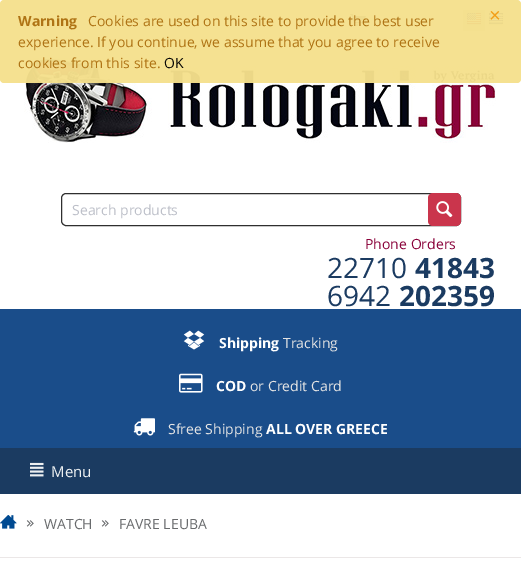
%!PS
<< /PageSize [521 574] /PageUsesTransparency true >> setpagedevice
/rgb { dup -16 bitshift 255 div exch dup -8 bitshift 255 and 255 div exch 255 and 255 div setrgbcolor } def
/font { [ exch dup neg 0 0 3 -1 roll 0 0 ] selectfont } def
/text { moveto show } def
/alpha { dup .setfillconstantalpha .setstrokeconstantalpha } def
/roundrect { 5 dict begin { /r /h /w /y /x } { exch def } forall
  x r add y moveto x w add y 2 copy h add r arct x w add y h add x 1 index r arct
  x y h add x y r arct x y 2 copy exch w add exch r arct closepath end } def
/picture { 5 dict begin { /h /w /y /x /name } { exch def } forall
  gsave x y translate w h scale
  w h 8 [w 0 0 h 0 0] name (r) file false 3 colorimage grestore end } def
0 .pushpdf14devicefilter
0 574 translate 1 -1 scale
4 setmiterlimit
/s1 { /OpenSans-Bold 14 font 16#AF7415 rgb } def
/s2 { /OpenSans-Regular 14 font 16#AF7415 rgb } def
/s3 { /LiberationSans-Regular 20 font 16#F39F17 rgb } def
/s4 { /OpenSans-Regular 14 font 16#0A0906 rgb } def
/s5 { /OpenSans-Regular 14 font 16#BDC0C9 rgb } def
/s6 { /OpenSans-Regular 14 font 16#8A033B rgb } def
/s7 { /OpenSans-Regular 28 font 16#1B3B61 rgb } def
/s8 { /OpenSans-Bold 28 font 16#1B3B61 rgb } def
/s9 { /OpenSans-Bold 14 font 16#FFFFFF rgb } def
/s10 { /OpenSans-Regular 14 font 16#E4E4E4 rgb } def
/s11 { /OpenSans-Regular 15 font 16#EDF0F2 rgb } def
/s12 { /OpenSans-Regular 14 font 16#696B6D rgb } def
16#FFFFFF rgb
0 0 521 574 rectfill
(pic1.raw) 350 14 16 12 picture
16#DFE4E4 rgb
463 10 22 21 rectfill
(pic2.raw) 466 13 16 13 picture
(pic3.raw) 488 13 16 13 picture
(pic4.raw) 24 58 472 85 picture
0.96 alpha
16#F5E08C rgb
0 0 521 83 4 roundrect fill
1 alpha
s1
(Warning) 18 26 text
s2
(Cookies are used on this site to provide the best user) 88 26 text
s3
(×) 489 22 text
s2
(experience. If you continue, we assume that you agree to receive) 18 47 text
(cookies from this site.) 18 68 text
s4
(OK) 164 68 text
16#1B3B61 rgb
0 448 521 46 rectfill
16#2F2F2F rgb
61.5 193.5 399 32 4.5 roundrect stroke
s5
(Search products) 72 215 text
16#CA354C rgb
428 193 33 33 5 roundrect fill
(pic5.raw) 436 201 17 17 picture
s6
(Phone Orders) 365 249 text
s7
(22710) 327 278 text
s8
(41843) 415 278 text
s7
(6942) 327 306 text
s8
(202359) 399 306 text
16#1A4D8A rgb
0 309 521 139 rectfill
(pic6.raw) 183 330 22 20 picture
s9
(Shipping) 219 348 text
s10
(Tracking) 283 348 text
(pic7.raw) 179 373 24 20 picture
s9
(COD) 216 391 text
s10
(or Credit Card) 250 391 text
(pic8.raw) 133 418 22 18 picture
(Sfree Shipping) 168 434 text
s9
(ALL OVER GREECE) 266 434 text
(pic9.raw) 30 462 14 15 picture
s11
(Menu) 51 477 text
16#EBE7E7 rgb
0 557 521 1 rectfill
(pic10.raw) 0 515 17 14 picture
(pic11.raw) 26 520 8 7 picture
s12
(WATCH) 44 529 text
(pic11.raw) 101 520 8 7 picture
(FAVRE LEUBA) 119 529 text
.poppdf14devicefilter showpage
